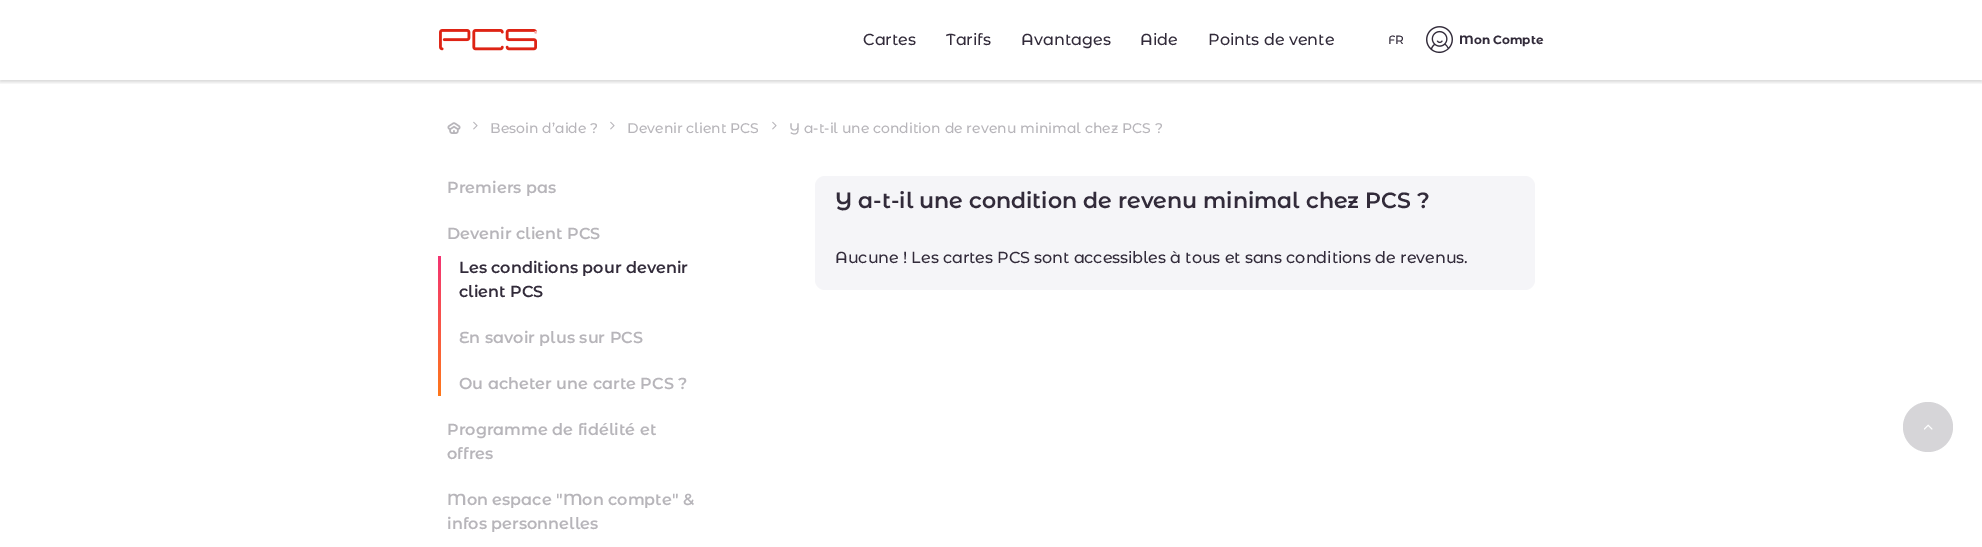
%!PS
<< /PageSize [1982 547] /PageUsesTransparency true >> setpagedevice
/rgb { dup -16 bitshift 255 div exch dup -8 bitshift 255 and 255 div exch 255 and 255 div setrgbcolor } def
/font { [ exch dup neg 0 0 3 -1 roll 0 0 ] selectfont } def
/text { moveto show } def
/alpha { dup .setfillconstantalpha .setstrokeconstantalpha } def
/circle { newpath 0 360 arc closepath } def
/roundrect { 5 dict begin { /r /h /w /y /x } { exch def } forall
  x r add y moveto x w add y 2 copy h add r arct x w add y h add x 1 index r arct
  x y h add x y r arct x y 2 copy exch w add exch r arct closepath end } def
/shadow { 12 dict begin { /a /b /q /h /w /y /x } { exch def } forall gsave /was 0 def
  9 -2 -9 { dup b mul 4 div /e exch def 1 sub .425 mul 2.718 exch exp 1 add a .99 .min exch div /now exch def
    1 1 now sub 1 was sub div sub alpha /was now def
    w h .min e 2 mul add 0 gt { x e sub y e sub w e 2 mul add h e 2 mul add
      q e add b .6 mul add w h .min 2 div e add .min 0 .max roundrect fill } if } for grestore end } def
/picture { 5 dict begin { /h /w /y /x /name } { exch def } forall
  gsave x y translate w h scale
  w h 8 [w 0 0 h 0 0] name (r) file false 3 colorimage grestore end } def
0 .pushpdf14devicefilter
0 547 translate 1 -1 scale
4 setmiterlimit
/s1 { /MontserratAlternates-Medium 16 font 16#322B3A rgb } def
/s2 { /MontserratAlternates-Medium 12 font 16#322B3A rgb } def
/s3 { /MontserratAlternates-Bold 12 font 16#322B3A rgb } def
/s4 { /MontserratAlternates-Medium 14 font 16#B7B5BA rgb } def
/s5 { /MontserratAlternates-SemiBold 16 font 16#B7B5BA rgb } def
/s6 { /MontserratAlternates-SemiBold 16 font 16#322B3A rgb } def
/s7 { /MontserratAlternates-SemiBold 22 font 16#322B3A rgb } def
16#FFFFFF rgb
0 0 1982 547 rectfill
gsave
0 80 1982 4 rectclip
16#000000 rgb
0 2 1982 80 0 2 0.16 shadow
grestore
(pic1.raw) 439 29 98 22 picture
s1
(Cartes) 863 45 text
(Tarifs) 946 45 text
(Avantages) 1021 45 text
(Aide) 1140 45 text
(Points de vente) 1208 45 text
s2
(FR) 1388 44 text
(pic2.raw) 1426 26 27 28 picture
s3
(Mon Compte) 1459 44 text
(pic3.raw) 447 122 14 12 picture
(pic4.raw) 473 121 5 9 picture
s4
(Besoin d’aide ?) 490 133 text
(pic4.raw) 610 121 5 9 picture
(Devenir client PCS) 627 133 text
(pic4.raw) 772 121 5 9 picture
(Y a-t-il une condition de revenu minimal chez PCS ?) 789 133 text
s5
(Premiers pas) 447 193 text
(Devenir client PCS) 447 239 text
gsave 438 256 3 140 1.5 roundrect clip newpath
<< /ShadingType 2 /ColorSpace /DeviceRGB /Coords [440 256 440 396] /Extend [true true] /Function << /FunctionType 2 /Domain [0 1] /C0 [0.953 0.204 0.447] /C1 [0.996 0.467 0.102] /N 1 >> >> shfill grestore
s6
(Les conditions pour devenir) 459 273 text
(client PCS) 459 297 text
s5
(En savoir plus sur PCS) 459 343 text
(Ou acheter une carte PCS ?) 459 389 text
(Programme de fidélité et) 447 435 text
(offres) 447 459 text
(Mon espace "Mon compte" &) 447 505 text
(infos personnelles) 447 529 text
16#F5F5F8 rgb
815 176 720 114 10 roundrect fill
s7
(Y a-t-il une condition de revenu minimal chez PCS ?) 835 208 text
/MontserratAlternates-Medium 16 font
835 263 moveto -0.08 0 (Aucune ! Les cartes PCS sont accessibles à tous et sans conditions de revenus.) ashow
16#D6D5D8 rgb
1928 427 25 circle fill
(pic5.raw) 1924 424 9 6 picture
.poppdf14devicefilter showpage
